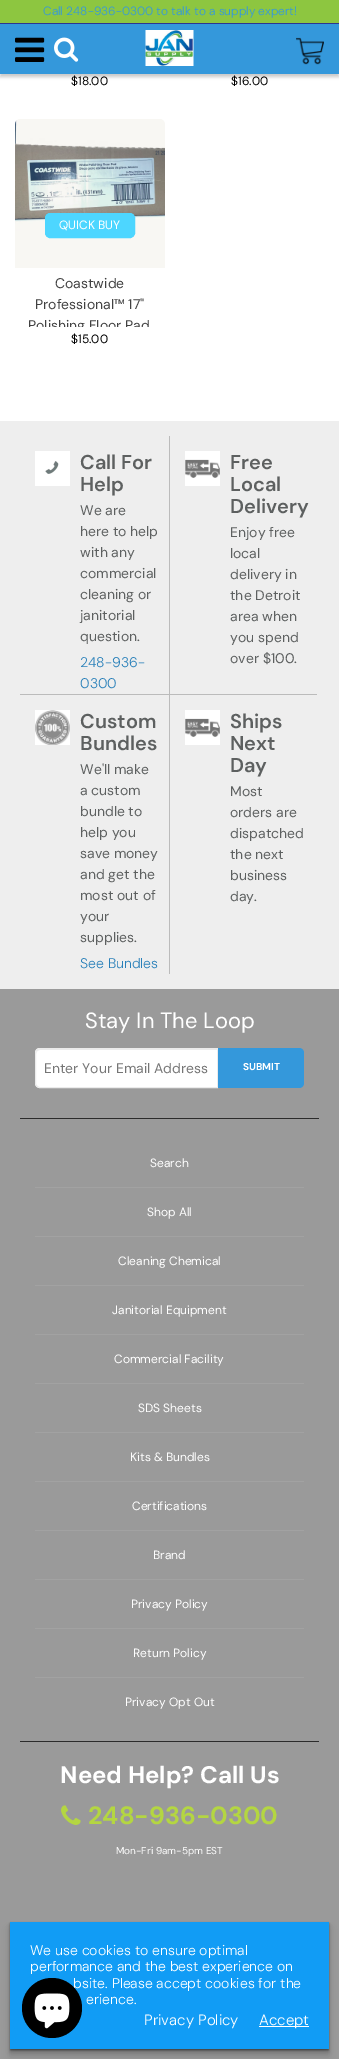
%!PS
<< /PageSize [339 2059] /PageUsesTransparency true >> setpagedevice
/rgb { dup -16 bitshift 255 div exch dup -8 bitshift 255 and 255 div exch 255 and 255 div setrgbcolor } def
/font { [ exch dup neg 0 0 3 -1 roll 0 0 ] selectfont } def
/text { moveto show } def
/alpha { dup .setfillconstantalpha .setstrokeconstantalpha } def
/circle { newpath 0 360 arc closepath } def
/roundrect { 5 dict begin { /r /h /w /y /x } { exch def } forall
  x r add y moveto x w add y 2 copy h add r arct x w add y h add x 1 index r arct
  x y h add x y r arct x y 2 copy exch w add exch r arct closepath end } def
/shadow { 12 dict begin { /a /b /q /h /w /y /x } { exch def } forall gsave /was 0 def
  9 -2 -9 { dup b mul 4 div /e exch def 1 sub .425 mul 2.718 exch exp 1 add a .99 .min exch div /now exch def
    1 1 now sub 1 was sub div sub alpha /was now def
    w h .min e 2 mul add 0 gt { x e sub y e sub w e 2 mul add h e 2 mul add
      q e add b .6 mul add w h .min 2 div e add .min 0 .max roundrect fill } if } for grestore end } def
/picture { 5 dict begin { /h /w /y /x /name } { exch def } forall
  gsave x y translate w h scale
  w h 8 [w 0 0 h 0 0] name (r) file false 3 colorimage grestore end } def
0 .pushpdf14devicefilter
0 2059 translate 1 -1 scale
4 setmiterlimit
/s1 { /DMSans-Light 12 font 16#3498DB rgb } def
/s2 { /DMSans-Regular 12 font 16#000000 rgb } def
/s3 { /DMSans-Regular 12 font 16#FFFFFF rgb } def
/s4 { /DMSans-Regular 14 font 16#414141 rgb } def
/s5 { /DMSans-SemiBold 20 font 16#5D6060 rgb } def
/s6 { /DMSans-Regular 14 font 16#5D6060 rgb } def
/s7 { /DMSans-Light 14 font 16#2980B9 rgb } def
/s8 { /DMSans-Regular 22 font 16#FFFFFF rgb } def
/s9 { /DMSans-Regular 14 font 16#757575 rgb } def
/s10 { /DMSans-Bold 10 font 16#FFFFFF rgb } def
/s11 { /DMSans-Bold 24 font 16#FFFFFF rgb } def
/s12 { /DMSans-Bold 25 font 16#B4D641 rgb } def
/s13 { /DMSans-Regular 10 font 16#FFFFFF rgb } def
/s14 { /DMSans-Light 14 font 16#FFFFFF rgb } def
/s15 { /DMSans-Light 15 font 16#FFFFFF rgb } def
16#FFFFFF rgb
0 0 339 2059 rectfill
16#000000 rgb
0 3 339 74 0 1.5 0.2 shadow
16#3498DB rgb
0 24 339 50 rectfill
16#8DC640 rgb
0 0 339 23 rectfill
16#2E368F rgb
0 23 339 1 rectfill
s1
(Call 248-936-0300 to talk to a supply expert!) 43 15 text
(pic1.raw) 15 37 30 25 picture
(pic2.raw) 54 37 25 25 picture
(pic3.raw) 145 30 49 36 picture
(pic4.raw) 296 37 28 28 picture
s2
($18.00) 71 85 text
($16.00) 231 85 text
(pic5.raw) 15 119 150 149 picture
16#4DD6FF rgb
45.5 213.5 89 24 4.5 roundrect gsave fill grestore
stroke
s3
(QUICK BUY) 59 229 text
s4
(Coastwide) 55 288 text
(Professional™ 17") 35 309 text
gsave
20 273 140 54 rectclip
(Polishing Floor Pad) 28 330 text
grestore
s2
($15.00) 71 343 text
16#EEEEEE rgb
0 421 339 568 rectfill
16#BBBBBB rgb
20 694 297 1 rectfill
(pic6.raw) 35 451 35 35 picture
s5
(Call For) 80 469 text
(Help) 80 491 text
s6
(We are) 80 515 text
(here to help) 80 536 text
(with any) 80 557 text
(commercial) 80 578 text
(cleaning or) 80 599 text
(janitorial) 80 620 text
(question.) 80 641 text
s7
(248-936-) 80 667 text
(0300) 80 688 text
16#BBBBBB rgb
169 436 1 538 rectfill
(pic7.raw) 185 451 35 35 picture
s5
(Free) 230 469 text
(Local) 230 491 text
(Delivery) 230 513 text
s6
(Enjoy free) 230 537 text
(local) 230 558 text
(delivery in) 230 579 text
(the Detroit) 230 600 text
(area when) 230 621 text
(you spend) 230 642 text
(over $100.) 230 663 text
(pic8.raw) 35 710 35 35 picture
s5
(Custom) 80 728 text
(Bundles) 80 750 text
s6
(We'll make) 80 774 text
(a custom) 80 795 text
(bundle to) 80 816 text
(help you) 80 837 text
(save money) 80 858 text
(and get the) 80 879 text
(most out of) 80 900 text
(your) 80 921 text
(supplies.) 80 942 text
s7
(See Bundles) 80 968 text
(pic7.raw) 185 710 35 35 picture
s5
(Ships) 230 728 text
(Next) 230 750 text
(Day) 230 772 text
s6
(Most) 230 796 text
(orders are) 230 817 text
(dispatched) 230 838 text
(the next) 230 859 text
(business) 230 880 text
(day.) 230 901 text
16#9A9A9A rgb
0 989 339 1070 rectfill
16#2B2B2B rgb
20 1118 299 1 rectfill
s8
(Stay In The Loop) 85 1028 text
40 1048 moveto 218 1048 lineto 218 1088 lineto 40 1088 lineto 37 1088 35 1086 35 1083 curveto 35 1053 lineto 35 1050 37 1048 40 1048 curveto closepath fill
16#ECECEC rgb
40 1050 moveto 217 1050 lineto 217 1049 lineto 39 1049 lineto 37 1050 36 1052 36 1054 curveto 36 1052 38 1050 40 1050 curveto closepath fill
16#EBEBEB rgb
40 1048.5 moveto 217.5 1048.5 lineto 217.5 1087.5 lineto 40 1087.5 lineto 37.5 1087.5 35.5 1085.5 35.5 1083 curveto 35.5 1053 lineto 35.5 1050.5 37.5 1048.5 40 1048.5 curveto closepath stroke
s9
(Enter Your Email Address) 44 1073 text
16#3498DB rgb
218 1048 moveto 299 1048 lineto 302 1048 304 1050 304 1053 curveto 304 1083 lineto 304 1086 302 1088 299 1088 curveto 218 1088 lineto closepath fill
s10
(SUBMIT) 243 1070 text
16#2B2B2B rgb
20 1741 299 1 rectfill
16#A2A2A2 rgb
35 1187 269 1 rectfill
s3
(Search) 150 1167 text
16#A2A2A2 rgb
35 1236 269 1 rectfill
s3
(Shop All) 147 1216 text
16#A2A2A2 rgb
35 1285 269 1 rectfill
s3
(Cleaning Chemical) 118 1265 text
16#A2A2A2 rgb
35 1334 269 1 rectfill
s3
(Janitorial Equipment) 112 1314 text
16#A2A2A2 rgb
35 1383 269 1 rectfill
s3
(Commercial Facility) 114 1363 text
16#A2A2A2 rgb
35 1432 269 1 rectfill
s3
(SDS Sheets) 138 1412 text
16#A2A2A2 rgb
35 1481 269 1 rectfill
s3
(Kits & Bundles) 130 1461 text
16#A2A2A2 rgb
35 1530 269 1 rectfill
s3
(Certifications) 132 1510 text
16#A2A2A2 rgb
35 1579 269 1 rectfill
s3
(Brand) 153 1559 text
16#A2A2A2 rgb
35 1628 269 1 rectfill
s3
(Privacy Policy) 131 1608 text
16#A2A2A2 rgb
35 1677 269 1 rectfill
s3
(Return Policy) 133 1657 text
(Privacy Opt Out) 125 1706 text
s11
(Need Help? Call Us) 60 1783 text
(pic9.raw) 61 1805 20 20 picture
s12
(248-936-0300) 88 1824 text
s13
(Mon-Fri 9am-5pm EST) 116 1854 text
16#000000 rgb
10 1930 319 127 0 4 0.1 shadow
10 1926 319 127 0 2 0.15 shadow
10 1924 319 127 0 1 0.2 shadow
10 1923 319 127 0 0.5 0.25 shadow
16#119CF5 rgb
10 1922 319 127 rectfill
s14
(We use cookies to ensure optimal) 30 1955 text
(performance and the best experience on) 30 1971 text
(bsite. Please accept cookies for the) 73 1988 text
(erience.) 86 2004 text
s15
(Privacy Policy) 144 2025 text
259 2026 50 1 rectfill
(Accept) 259 2025 text
16#000000 rgb
52 2008 30 circle fill
(pic10.raw) 34 1993 36 36 picture
.poppdf14devicefilter showpage
